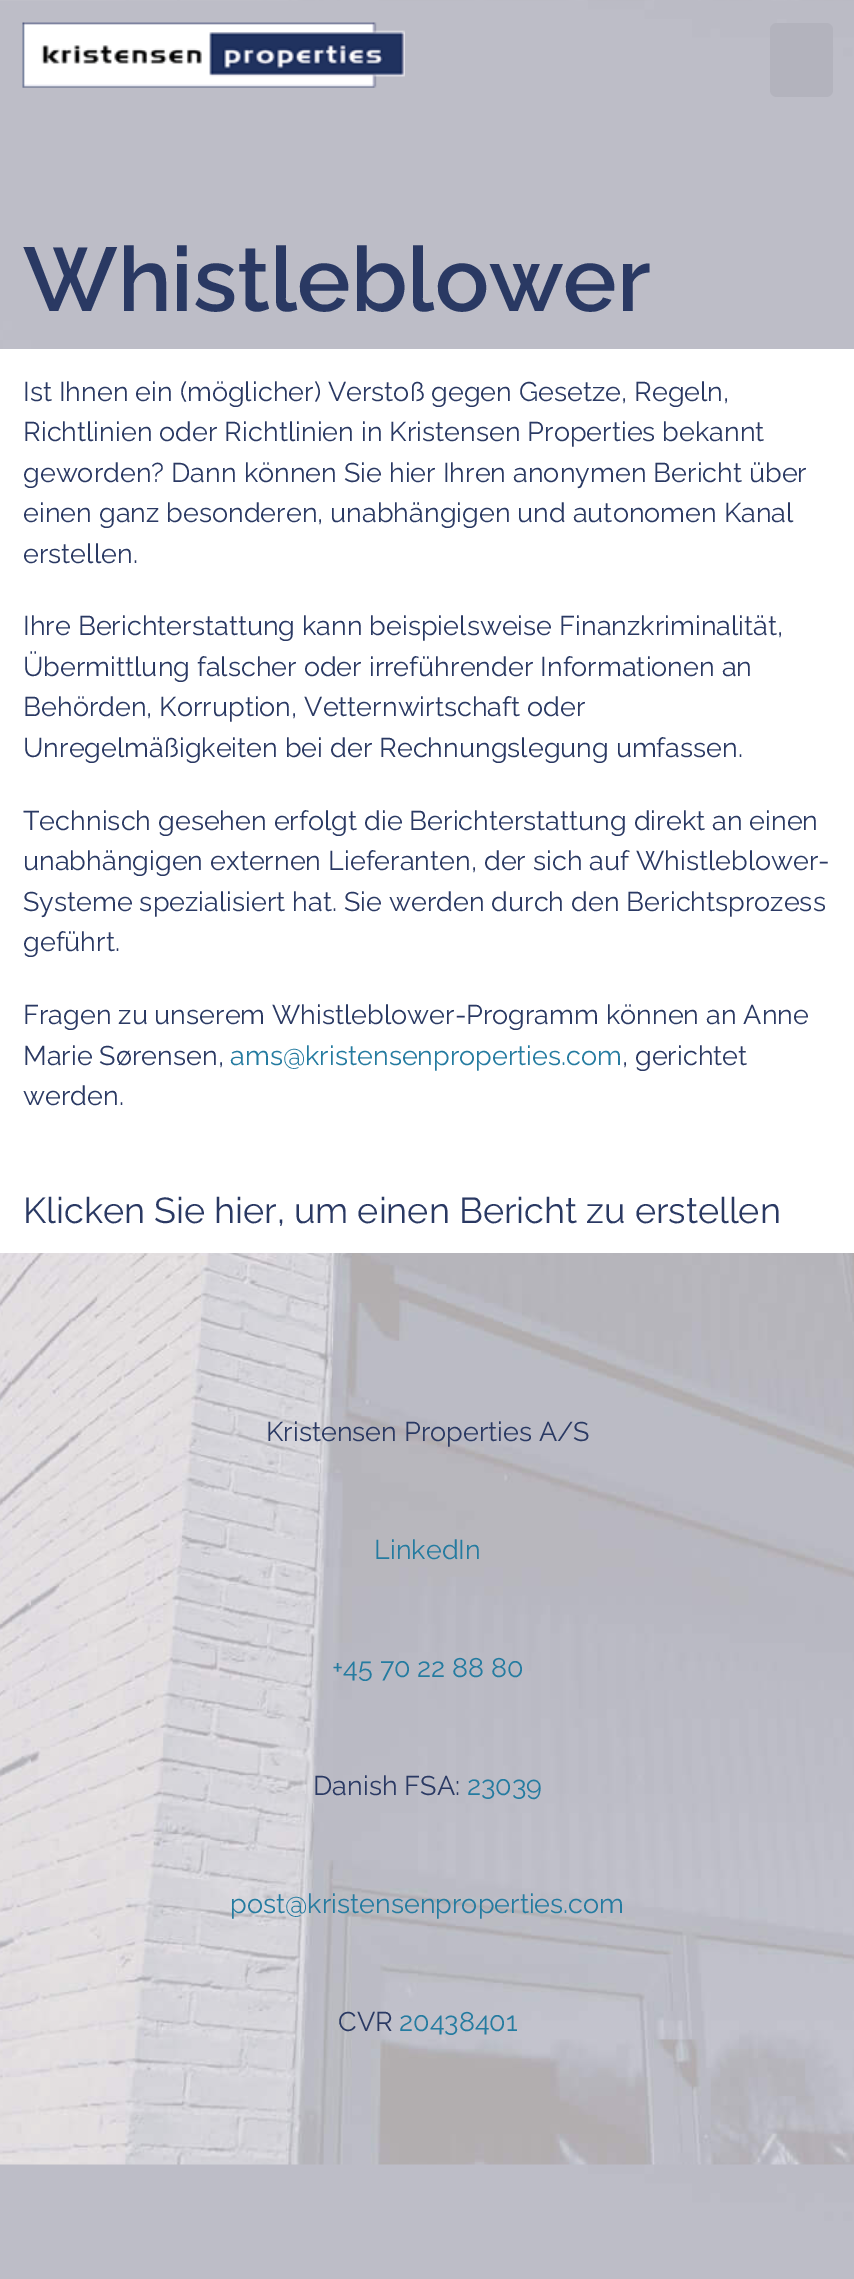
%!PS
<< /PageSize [854 2279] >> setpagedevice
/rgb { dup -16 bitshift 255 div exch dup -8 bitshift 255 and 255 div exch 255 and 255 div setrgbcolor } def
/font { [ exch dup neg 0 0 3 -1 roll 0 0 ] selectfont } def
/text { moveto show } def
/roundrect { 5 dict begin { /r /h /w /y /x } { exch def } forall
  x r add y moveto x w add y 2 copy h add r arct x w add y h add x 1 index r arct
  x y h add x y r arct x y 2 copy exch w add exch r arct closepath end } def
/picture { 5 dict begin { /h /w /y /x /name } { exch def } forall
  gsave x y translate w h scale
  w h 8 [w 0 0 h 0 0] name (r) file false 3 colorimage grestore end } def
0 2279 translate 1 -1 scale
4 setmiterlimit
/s1 { /Raleway-SemiBold 90 font 16#2A3963 rgb } def
/s2 { /Raleway-Regular 27 font 16#2A3963 rgb } def
/s3 { /Raleway-Regular 27 font 16#247BA0 rgb } def
/s4 { /Raleway-Regular 36 font 16#2A3963 rgb } def
16#FFFFFF rgb
0 0 854 2279 rectfill
(pic1.raw) 0 0 854 2279 picture
(pic2.raw) 22 22 383 66 picture
16#B3B3BD rgb
770 23 63 74 7 roundrect fill
s1
(Whistleblower) 23 311 text
16#FFFFFF rgb
0 349 854 904 rectfill
s2
(Ist Ihnen ein \(möglicher\) Verstoß gegen Gesetze, Regeln,) 23 401 text
(Richtlinien oder Richtlinien in Kristensen Properties bekannt) 23 441 text
(geworden? Dann können Sie hier Ihren anonymen Bericht über) 23 482 text
(einen ganz besonderen, unabhängigen und autonomen Kanal) 23 522 text
(erstellen.) 23 563 text
(Ihre Berichterstattung kann beispielsweise Finanzkriminalität,) 23 635 text
(Übermittlung falscher oder irreführender Informationen an) 23 676 text
(Behörden, Korruption, Vetternwirtschaft oder) 23 716 text
(Unregelmäßigkeiten bei der Rechnungslegung umfassen.) 23 757 text
(Technisch gesehen erfolgt die Berichterstattung direkt an einen) 23 830 text
(unabhängigen externen Lieferanten, der sich auf Whistleblower-) 23 870 text
(Systeme spezialisiert hat. Sie werden durch den Berichtsprozess) 23 911 text
(geführt.) 23 951 text
(Fragen zu unserem Whistleblower-Programm können an Anne) 23 1024 text
(Marie Sørensen,) 23 1065 text
s3
(ams@kristensenproperties.com) 230 1065 text
s2
(, gerichtet) 622 1065 text
(werden.) 23 1105 text
s4
(Klicken Sie hier, um einen Bericht zu erstellen) 23 1223 text
s2
(Kristensen Properties A/S) 266 1441 text
s3
(LinkedIn) 374 1559 text
(+45 70 22 88 80) 332 1677 text
s2
(Danish FSA:) 313 1795 text
s3
(23039) 467 1795 text
(post@kristensenproperties.com) 230 1913 text
s2
(CVR) 338 2031 text
s3
(20438401) 399 2031 text
showpage
